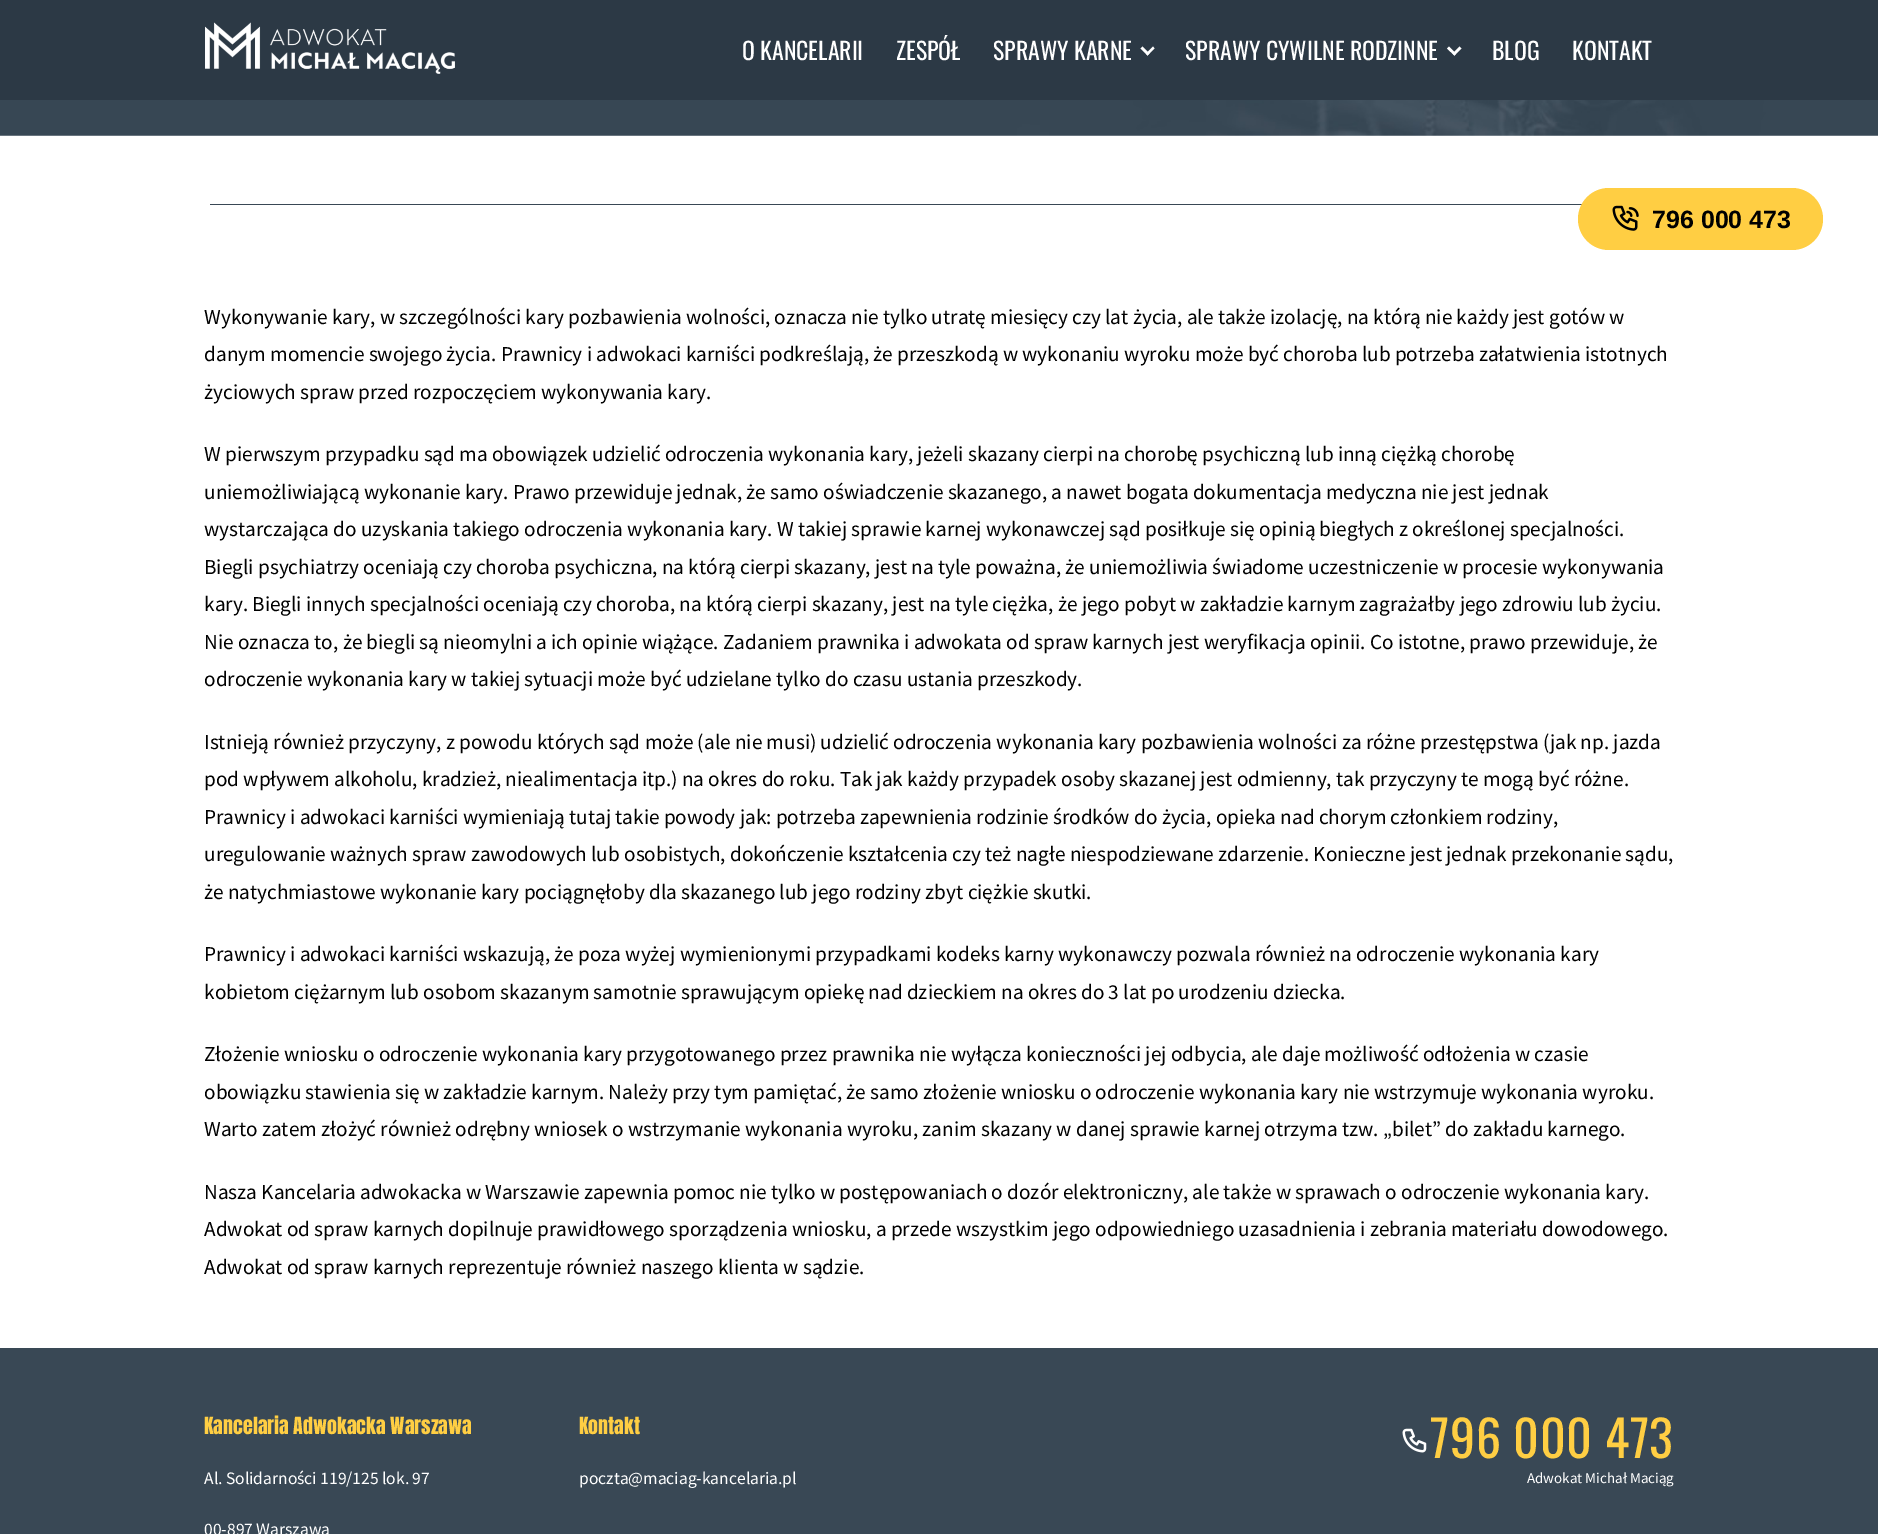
%!PS
<< /PageSize [1878 1534] >> setpagedevice
/rgb { dup -16 bitshift 255 div exch dup -8 bitshift 255 and 255 div exch 255 and 255 div setrgbcolor } def
/font { [ exch dup neg 0 0 3 -1 roll 0 0 ] selectfont } def
/text { moveto show } def
/roundrect { 5 dict begin { /r /h /w /y /x } { exch def } forall
  x r add y moveto x w add y 2 copy h add r arct x w add y h add x 1 index r arct
  x y h add x y r arct x y 2 copy exch w add exch r arct closepath end } def
/picture { 5 dict begin { /h /w /y /x /name } { exch def } forall
  gsave x y translate w h scale
  w h 8 [w 0 0 h 0 0] name (r) file false 3 colorimage grestore end } def
0 1534 translate 1 -1 scale
4 setmiterlimit
/s1 { /Oswald-Regular 23.75 font 16#FFFFFF rgb } def
/s2 { /SourceSansPro-Regular 21.25 font 16#000000 rgb } def
/s3 { /Anton-Regular 20 font 16#FFCE43 rgb } def
/s4 { /SourceSansPro-Regular 17.5 font 16#FFFFFF rgb } def
/s5 { /SourceSansPro-Regular 15 font 16#FFFFFF rgb } def
/s6 { /LiberationSans-Bold 25 font 16#000000 rgb } def
16#FFFFFF rgb
0 0 1878 1534 rectfill
16#2C3945 rgb
0 0 1878 100 rectfill
(pic1.raw) 205 22 250 52 picture
s1
(O KANCELARII) 742 60 text
(ZESPÓŁ) 896 60 text
(SPRAWY KARNE) 993 60 text
1154.5 48.5 moveto 1147.5 55.5 lineto 1146 53.5 lineto 1153 46.5 lineto closepath fill
1149.5 53.5 moveto 1147.5 55.5 lineto 1140.5 48.5 lineto 1142.5 46.5 lineto closepath fill
(SPRAWY CYWILNE RODZINNE) 1185 60 text
1461.5 48.5 moveto 1454.5 55.5 lineto 1452.5 53.5 lineto 1459.5 46.5 lineto closepath fill
1456 53.5 moveto 1454.5 55.5 lineto 1447 48.5 lineto 1449 46.5 lineto closepath fill
(BLOG) 1492 60 text
(KONTAKT) 1572 60 text
(pic2.raw) 0 100 1878 36 picture
16#394855 rgb
210 204 1372 1 rectfill
s2
(Wykonywanie kary, w szczególności kary pozbawienia wolności, oznacza nie tylko utratę miesięcy czy lat życia, ale także izolację, na którą nie każdy jest gotów w) 204 324 text
(danym momencie swojego życia. Prawnicy i adwokaci karniści podkreślają, że przeszkodą w wykonaniu wyroku może być choroba lub potrzeba załatwienia istotnych) 204 361 text
(życiowych spraw przed rozpoczęciem wykonywania kary.) 204 399 text
(W pierwszym przypadku sąd ma obowiązek udzielić odroczenia wykonania kary, jeżeli skazany cierpi na chorobę psychiczną lub inną ciężką chorobę) 204 461 text
(uniemożliwiającą wykonanie kary. Prawo przewiduje jednak, że samo oświadczenie skazanego, a nawet bogata dokumentacja medyczna nie jest jednak) 204 499 text
(wystarczająca do uzyskania takiego odroczenia wykonania kary. W takiej sprawie karnej wykonawczej sąd posiłkuje się opinią biegłych z określonej specjalności.) 204 536 text
(Biegli psychiatrzy oceniają czy choroba psychiczna, na którą cierpi skazany, jest na tyle poważna, że uniemożliwia świadome uczestniczenie w procesie wykonywania) 204 574 text
(kary. Biegli innych specjalności oceniają czy choroba, na którą cierpi skazany, jest na tyle ciężka, że jego pobyt w zakładzie karnym zagrażałby jego zdrowiu lub życiu.) 204 611 text
(Nie oznacza to, że biegli są nieomylni a ich opinie wiążące. Zadaniem prawnika i adwokata od spraw karnych jest weryfikacja opinii. Co istotne, prawo przewiduje, że) 204 649 text
(odroczenie wykonania kary w takiej sytuacji może być udzielane tylko do czasu ustania przeszkody.) 204 686 text
(Istnieją również przyczyny, z powodu których sąd może \(ale nie musi\) udzielić odroczenia wykonania kary pozbawienia wolności za różne przestępstwa \(jak np. jazda) 204 749 text
(pod wpływem alkoholu, kradzież, niealimentacja itp.\) na okres do roku. Tak jak każdy przypadek osoby skazanej jest odmienny, tak przyczyny te mogą być różne.) 204 786 text
(Prawnicy i adwokaci karniści wymieniają tutaj takie powody jak: potrzeba zapewnienia rodzinie środków do życia, opieka nad chorym członkiem rodziny,) 204 824 text
(uregulowanie ważnych spraw zawodowych lub osobistych, dokończenie kształcenia czy też nagłe niespodziewane zdarzenie. Konieczne jest jednak przekonanie sądu,) 204 861 text
(że natychmiastowe wykonanie kary pociągnęłoby dla skazanego lub jego rodziny zbyt ciężkie skutki.) 204 899 text
(Prawnicy i adwokaci karniści wskazują, że poza wyżej wymienionymi przypadkami kodeks karny wykonawczy pozwala również na odroczenie wykonania kary) 204 961 text
(kobietom ciężarnym lub osobom skazanym samotnie sprawującym opiekę nad dzieckiem na okres do 3 lat po urodzeniu dziecka.) 204 999 text
(Złożenie wniosku o odroczenie wykonania kary przygotowanego przez prawnika nie wyłącza konieczności jej odbycia, ale daje możliwość odłożenia w czasie) 204 1061 text
(obowiązku stawienia się w zakładzie karnym. Należy przy tym pamiętać, że samo złożenie wniosku o odroczenie wykonania kary nie wstrzymuje wykonania wyroku.) 204 1099 text
(Warto zatem złożyć również odrębny wniosek o wstrzymanie wykonania wyroku, zanim skazany w danej sprawie karnej otrzyma tzw. „bilet” do zakładu karnego.) 204 1136 text
(Nasza Kancelaria adwokacka w Warszawie zapewnia pomoc nie tylko w postępowaniach o dozór elektroniczny, ale także w sprawach o odroczenie wykonania kary.) 204 1199 text
(Adwokat od spraw karnych dopilnuje prawidłowego sporządzenia wniosku, a przede wszystkim jego odpowiedniego uzasadnienia i zebrania materiału dowodowego.) 204 1236 text
(Adwokat od spraw karnych reprezentuje również naszego klienta w sądzie.) 204 1274 text
16#394855 rgb
0 1348 1878 186 rectfill
s3
(Kancelaria Adwokacka Warszawa) 204 1434 text
s4
(Al. Solidarności 119/125 lok. 97) 204 1484 text
(00-897 Warszawa) 204 1535 text
s3
(Kontakt) 579 1434 text
s4
(poczta@maciag-kancelaria.pl) 579 1484 text
(pic3.raw) 1402 1428 25 25 picture
/Oswald-Regular 50 font
16#FFCE43 rgb
1430 1458 moveto 0.6 0 (796 000 473) ashow
s5
(Adwokat Michał Maciąg) 1527 1483 text
16#FFCE43 rgb
1578 188 245 62 31 roundrect fill
(pic4.raw) 1612 205 27 26 picture
s6
(796 000 473) 1652 228 text
showpage
